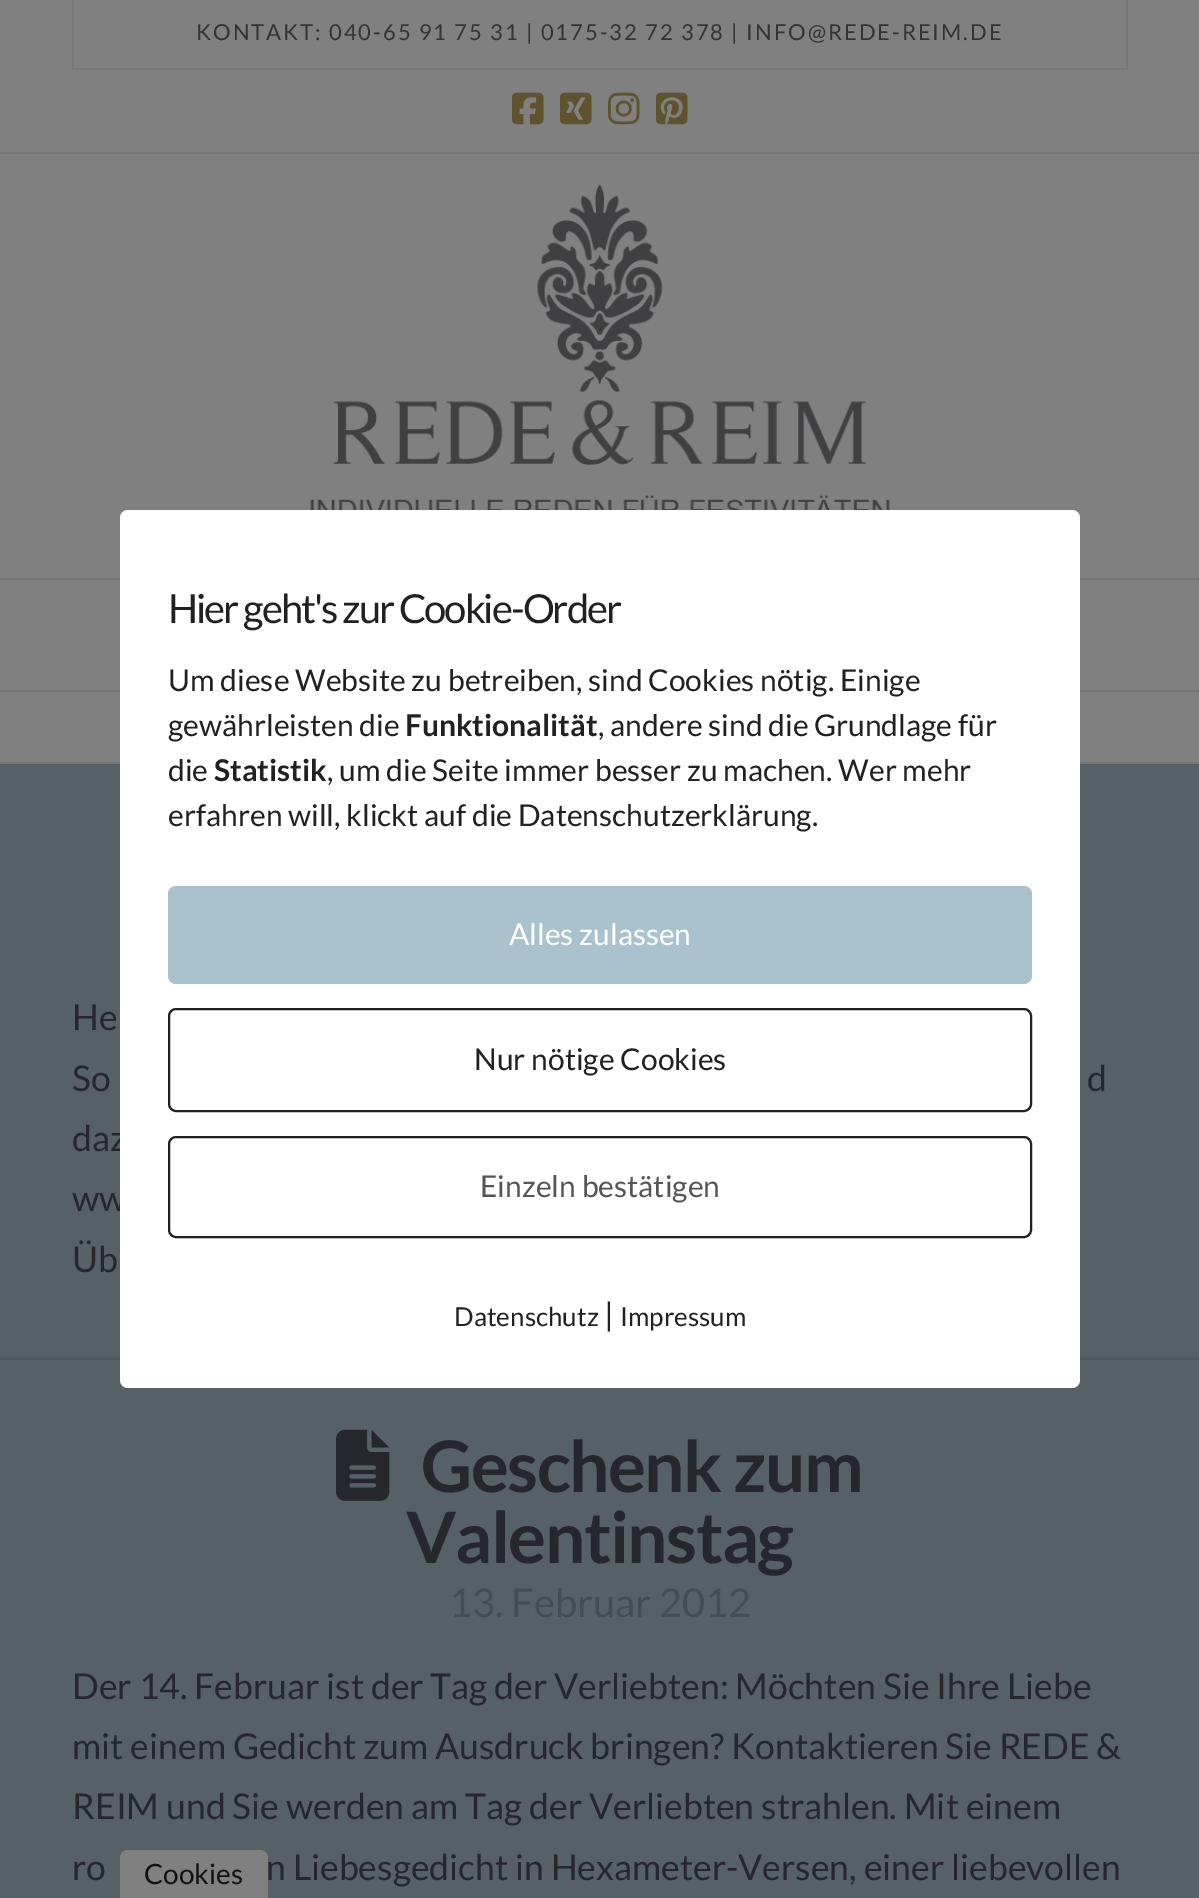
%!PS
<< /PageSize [1199 1898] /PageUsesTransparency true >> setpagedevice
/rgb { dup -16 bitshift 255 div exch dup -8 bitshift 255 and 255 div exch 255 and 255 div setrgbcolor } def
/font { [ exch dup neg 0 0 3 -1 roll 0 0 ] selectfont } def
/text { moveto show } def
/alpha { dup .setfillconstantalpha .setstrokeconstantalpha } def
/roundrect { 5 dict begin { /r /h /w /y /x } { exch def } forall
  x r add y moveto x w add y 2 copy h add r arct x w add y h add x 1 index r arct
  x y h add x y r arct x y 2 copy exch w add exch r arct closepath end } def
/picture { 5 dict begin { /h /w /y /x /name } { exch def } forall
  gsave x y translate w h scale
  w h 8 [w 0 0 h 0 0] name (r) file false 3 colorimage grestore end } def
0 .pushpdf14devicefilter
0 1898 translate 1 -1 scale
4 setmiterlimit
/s1 { /Lato-Regular 35.55 font 16#26272D rgb } def
/s2 { /Lato-Regular 39.75 font 16#454D53 rgb } def
/s3 { /Lato-Regular 30 font 16#212121 rgb } def
/s4 { /Lato-Bold 30 font 16#212121 rgb } def
/s5 { /Lato-Regular 30 font 16#FFFFFF rgb } def
/s6 { /Lato-Regular 30 font 16#555555 rgb } def
/s7 { /Lato-Regular 26 font 16#212121 rgb } def
/s8 { /Lato-Regular 32 font 16#212121 rgb } def
/s9 { /Lato-Regular 28 font 16#121212 rgb } def
16#808080 rgb
0 0 1199 1898 rectfill
16#767676 rgb
0 152 1199 2 rectfill
1128 0 moveto 1128 70 lineto 1126 68 lineto 1126 0 lineto closepath fill
0.07 alpha
16#000000 rgb
1128 70 moveto 72 70 lineto 74 68 lineto 1126 68 lineto closepath fill
72 70 moveto 72 0 lineto 74 0 lineto 74 68 lineto closepath fill
/Lato-Regular 22 font
1 alpha
16#353236 rgb
196 40 moveto 2 0 (KONTAKT: 040-65 91 75 31 | 0175-32 72 378 | INFO@REDE-REIM.DE) ashow
(pic1.raw) 512 92 32 33 picture
(pic2.raw) 560 92 32 33 picture
(pic3.raw) 608 92 32 33 picture
(pic4.raw) 656 92 32 33 picture
16#767676 rgb
0 578 1199 2 rectfill
(pic5.raw) 310 184 580 326 picture
0 690 1199 2 rectfill
0 762 1199 2 rectfill
16#556167 rgb
0 764 1199 594 rectfill
s1
(He) 72 1030 text
(So) 72 1091 text
(d) 1087 1091 text
(daz) 72 1151 text
(ww) 72 1211 text
(Üb) 72 1272 text
16#556167 rgb
0 1360 1199 538 rectfill
16#4F5A60 rgb
0 1358 1199 2 rectfill
(pic6.raw) 336 1429 54 72 picture
/Lato-Bold 71 font
16#26272D rgb
421 1492 moveto -1.5 0 (Geschenk zum) ashow
406 1563 moveto -1.5 0 (Valentinstag) ashow
s2
(13. Februar 2012) 449 1617 text
s1
(Der 14. Februar ist der Tag der Verliebten: Möchten Sie Ihre Liebe) 72 1699 text
(mit einem Gedicht zum Ausdruck bringen? Kontaktieren Sie REDE &) 72 1759 text
(REIM und Sie werden am Tag der Verliebten strahlen. Mit einem) 72 1819 text
(ro) 72 1880 text
(n Liebesgedicht in Hexameter-Versen, einer liebevollen) 266 1880 text
16#FFFFFF rgb
120 510 960 878 8 roundrect fill
/Lato-Regular 40 font
16#212121 rgb
168 623 moveto -2 0 (Hier geht's zur Cookie-Order) ashow
s3
(Um diese Website zu betreiben, sind Cookies nötig. Einige) 168 691 text
(gewährleisten die) 168 736 text
s4
(Funktionalität) 405 736 text
s3
(, andere sind die Grundlage für) 598 736 text
(die) 168 781 text
s4
(Statistik) 214 781 text
s3
(, um die Seite immer besser zu machen. Wer mehr) 327 781 text
(erfahren will, klickt auf die Datenschutzerklärung.) 168 826 text
16#AAC2CE rgb
168 886 864 98 8 roundrect fill
s5
(Alles zulassen) 509 945 text
16#212121 rgb
2 setlinewidth
169 1009 862 102 7 roundrect stroke
(Nur nötige Cookies) 474 1070 text
169 1137 862 100 7 roundrect stroke
s6
(Einzeln bestätigen) 480 1197 text
s7
(Datenschutz) 454 1326 text
s8
(|) 604 1326 text
s7
(Impressum) 620 1326 text
16#808080 rgb
128 1850 moveto 260 1850 lineto 264.5 1850 268 1853.5 268 1858 curveto 268 1898 lineto 120 1898 lineto 120 1858 lineto 120 1853.5 123.5 1850 128 1850 curveto closepath fill
s9
(Cookies) 144 1884 text
.poppdf14devicefilter showpage
